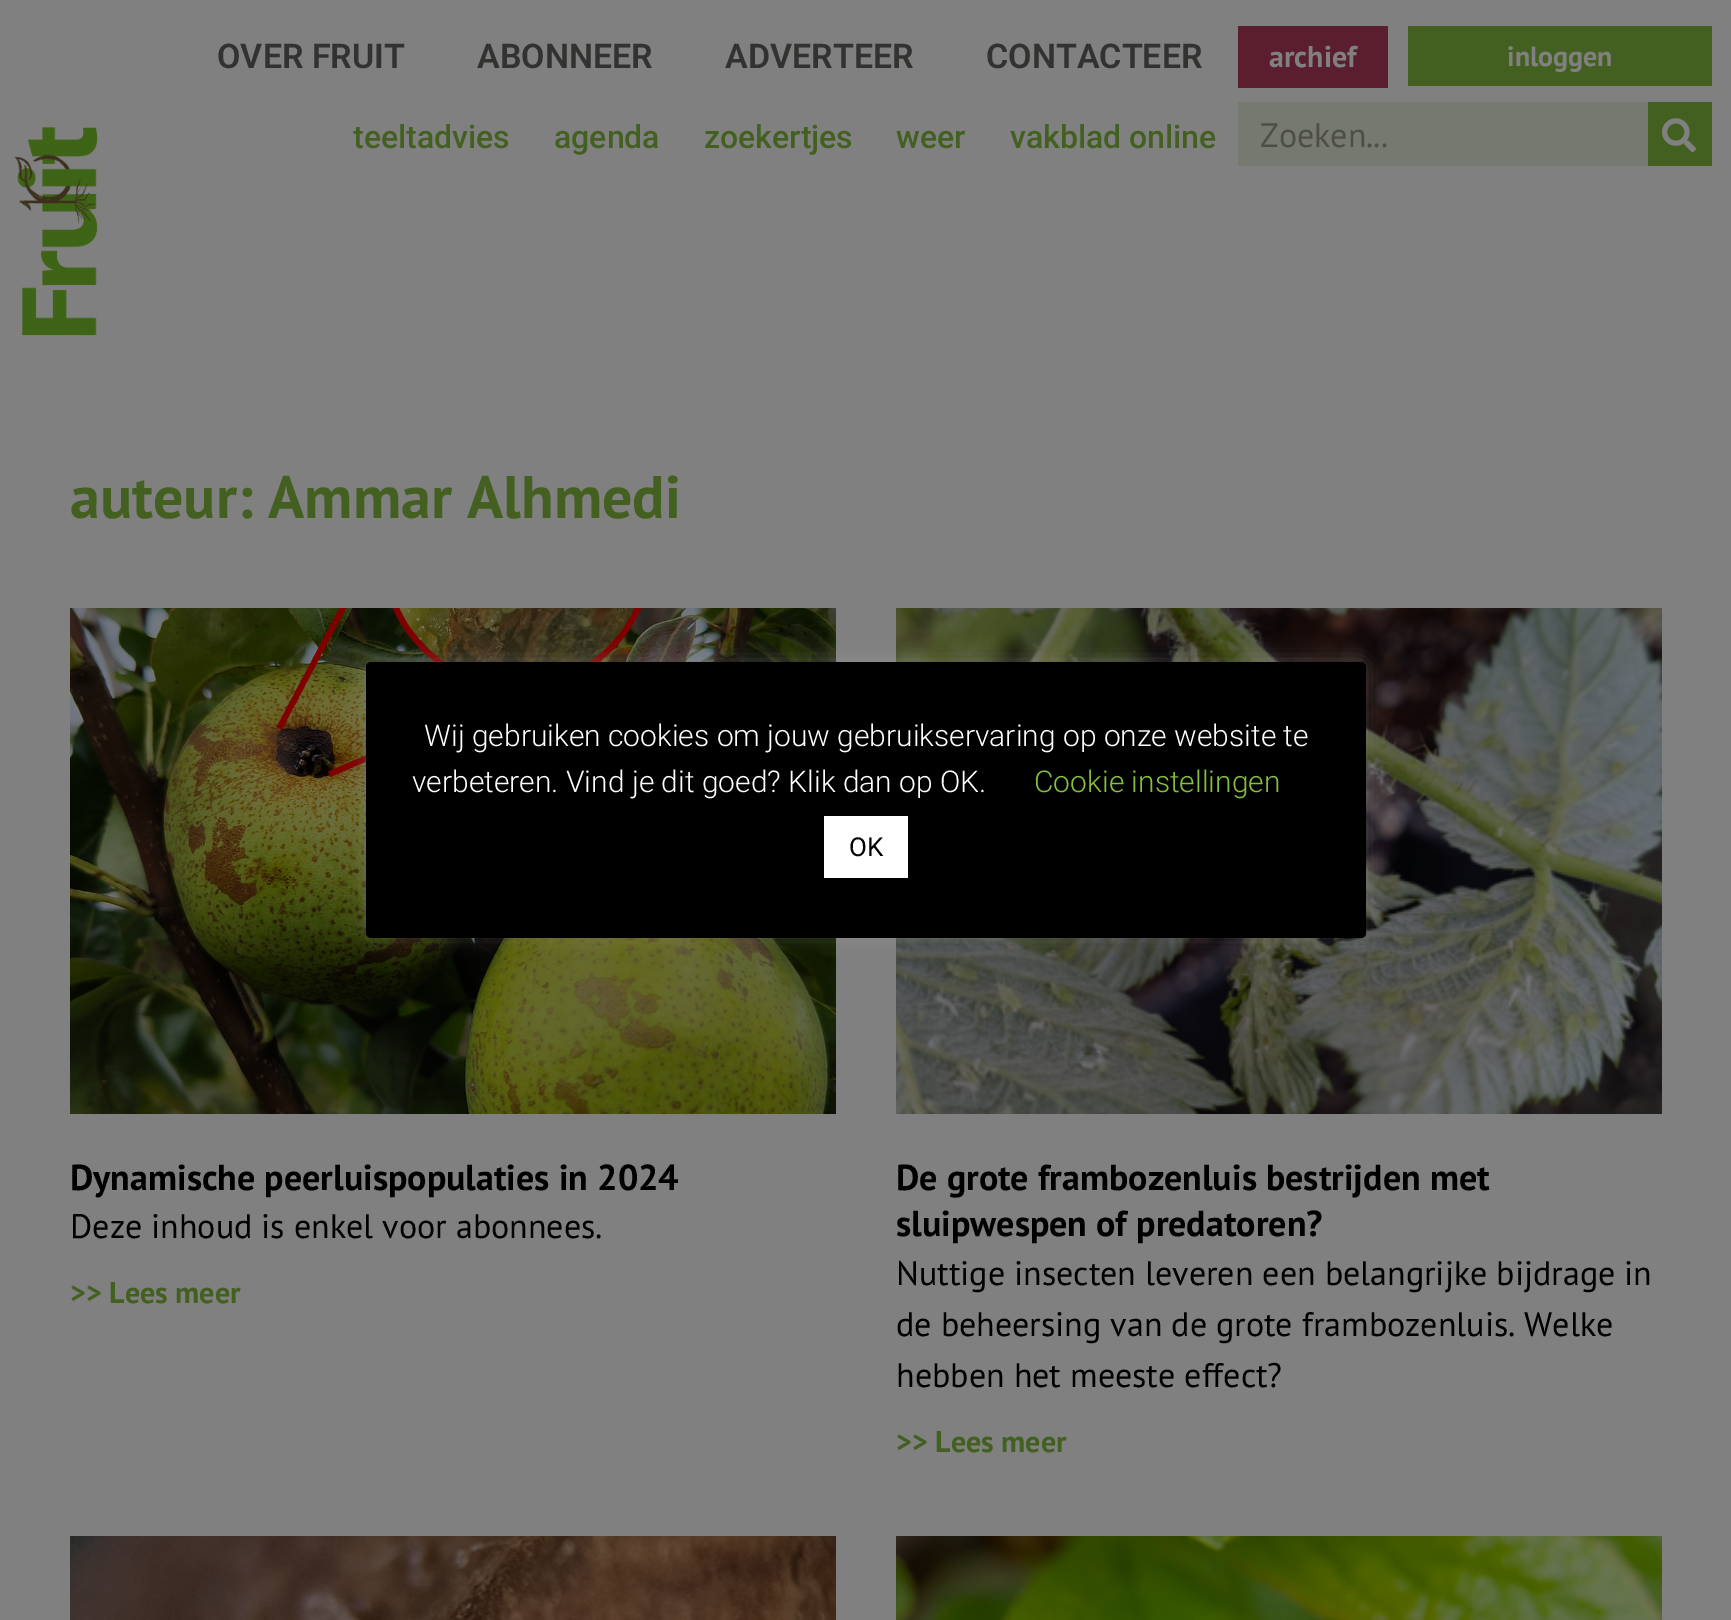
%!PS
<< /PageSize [1731 1620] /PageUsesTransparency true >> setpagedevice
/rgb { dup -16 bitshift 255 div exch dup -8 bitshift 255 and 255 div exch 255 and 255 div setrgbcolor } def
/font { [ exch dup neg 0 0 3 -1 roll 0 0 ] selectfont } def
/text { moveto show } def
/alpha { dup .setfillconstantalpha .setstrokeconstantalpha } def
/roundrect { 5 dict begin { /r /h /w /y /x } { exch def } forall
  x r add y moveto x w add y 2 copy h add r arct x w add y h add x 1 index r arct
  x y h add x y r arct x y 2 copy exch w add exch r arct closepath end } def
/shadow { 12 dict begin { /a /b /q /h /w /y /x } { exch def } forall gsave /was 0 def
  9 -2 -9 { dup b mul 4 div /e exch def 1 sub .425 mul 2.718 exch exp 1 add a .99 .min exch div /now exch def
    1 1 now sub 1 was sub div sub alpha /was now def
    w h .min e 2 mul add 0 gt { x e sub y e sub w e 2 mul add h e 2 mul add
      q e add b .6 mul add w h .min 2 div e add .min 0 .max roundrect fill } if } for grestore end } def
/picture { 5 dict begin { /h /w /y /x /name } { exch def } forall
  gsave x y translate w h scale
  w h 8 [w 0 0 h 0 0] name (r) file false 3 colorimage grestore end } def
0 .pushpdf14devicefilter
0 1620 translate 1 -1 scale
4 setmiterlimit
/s1 { /Roboto-SemiBold 34 font 16#323231 rgb } def
/s2 { /PTSans-Bold 30 font 16#808080 rgb } def
/s3 { /PTSans-Bold 28 font 16#808080 rgb } def
/s4 { /Roboto-Medium 32 font 16#436020 rgb } def
/s5 { /PTSans-Regular 34 font 16#4D4E4A rgb } def
/s6 { /PTSans-Bold 60 font 16#436020 rgb } def
/s7 { /PTSans-Bold 36 font 16#000000 rgb } def
/s8 { /PTSans-Regular 34 font 16#000000 rgb } def
/s9 { /PTSans-Bold 30 font 16#436020 rgb } def
/s10 { /Roboto-Light 30 font 16#FFFFFF rgb } def
/s11 { /Roboto-Light 30 font 16#85BF3F rgb } def
/s12 { /Roboto-Regular 26 font 16#000000 rgb } def
16#808080 rgb
0 0 1731 1620 rectfill
s1
(OVER FRUIT) 217 68 text
(ABONNEER) 477 68 text
(ADVERTEER) 725 68 text
(CONTACTEER) 986 68 text
16#5A1E2F rgb
1238 26 150 62 rectfill
s2
(archief) 1269 67 text
16#436020 rgb
1408 26 304 60 rectfill
s3
(inloggen) 1507 66 text
s4
(teeltadvies) 353 148 text
(agenda) 554 148 text
(zoekertjes) 704 148 text
(weer) 896 148 text
(vakblad online) 1010 148 text
16#76796F rgb
1238 102 410 64 rectfill
s5
(Zoeken...) 1260 147 text
16#436020 rgb
1648 102 64 64 rectfill
(pic1.raw) 1662 118 34 35 picture
(pic2.raw) 14 127 84 209 picture
s6
(auteur: Ammar Alhmedi) 70 518 text
(pic3.raw) 70 608 766 506 picture
s7
(Dynamische peerluispopulaties in 2024) 70 1190 text
s8
(Deze inhoud is enkel voor abonnees.) 70 1238 text
s9
(>> Lees meer) 70 1303 text
(pic4.raw) 896 608 766 506 picture
s7
(De grote frambozenluis bestrijden met) 896 1190 text
(sluipwespen of predatoren?) 896 1236 text
s8
(Nuttige insecten leveren een belangrijke bijdrage in) 896 1285 text
(de beheersing van de grote frambozenluis. Welke) 896 1336 text
(hebben het meeste effect?) 896 1387 text
s9
(>> Lees meer) 896 1452 text
(pic5.raw) 70 1536 766 84 picture
(pic6.raw) 896 1536 766 84 picture
16#ACABAB rgb
366 660 1000 276 5 10 0.3 shadow
16#000000 rgb
366 662 1000 276 5 roundrect fill
s10
(Wij gebruiken cookies om jouw gebruikservaring op onze website te) 424 746 text
(verbeteren. Vind je dit goed? Klik dan op OK.) 412 792 text
s11
(Cookie instellingen) 1034 792 text
16#FFFFFF rgb
824 816 84 62 rectfill
s12
(OK) 849 856 text
.poppdf14devicefilter showpage
